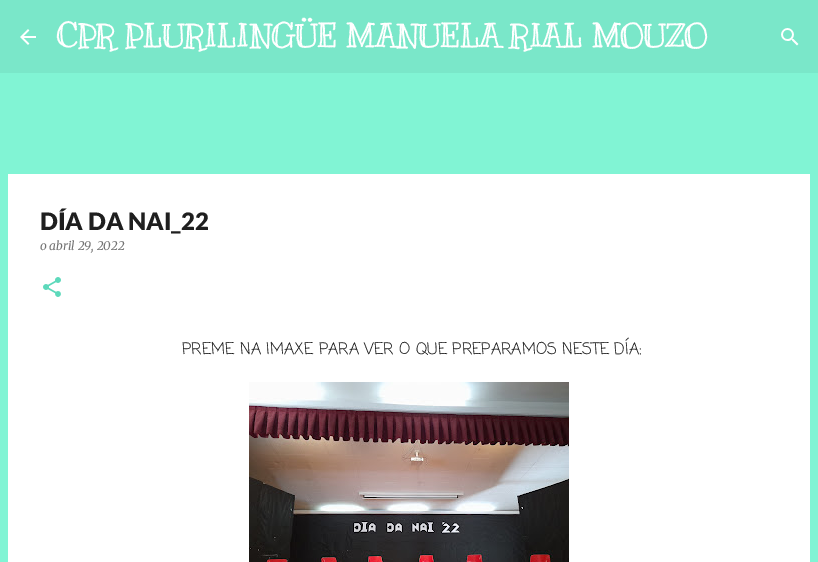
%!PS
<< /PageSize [818 562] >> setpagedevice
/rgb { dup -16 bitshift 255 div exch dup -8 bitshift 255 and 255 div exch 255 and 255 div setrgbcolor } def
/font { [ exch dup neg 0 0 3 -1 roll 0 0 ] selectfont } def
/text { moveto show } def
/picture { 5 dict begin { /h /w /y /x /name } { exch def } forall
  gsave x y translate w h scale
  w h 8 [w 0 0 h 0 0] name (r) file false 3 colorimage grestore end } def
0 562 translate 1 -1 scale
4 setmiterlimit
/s1 { /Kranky-Bold 32 font 16#FFFFFF rgb } def
/s2 { /Lato-Black 24 font 16#1F1F1F rgb } def
/s3 { /Merriweather-Italic 12 font 16#747474 rgb } def
/s4 { /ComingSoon-Regular 16 font 16#1F1F1F rgb } def
16#81F4D4 rgb
0 0 818 562 rectfill
16#7AE7C9 rgb
0 0 818 73 rectfill
(pic1.raw) 20 29 16 16 picture
s1
(CPR PLURILINGÜE MANUELA RIAL MOUZO) 56 47 text
(pic2.raw) 781 28 18 18 picture
8 174 802 388 rectfill
s2
(DÍA DA NAI_22) 40 230 text
s3
(o abril 29, 2022) 40 250 text
(pic3.raw) 43 277 18 20 picture
s4
(PREME NA IMAXE PARA VER O QUE PREPARAMOS NESTE DÍA:) 182 354 text
(pic4.raw) 249 382 320 180 picture
showpage
